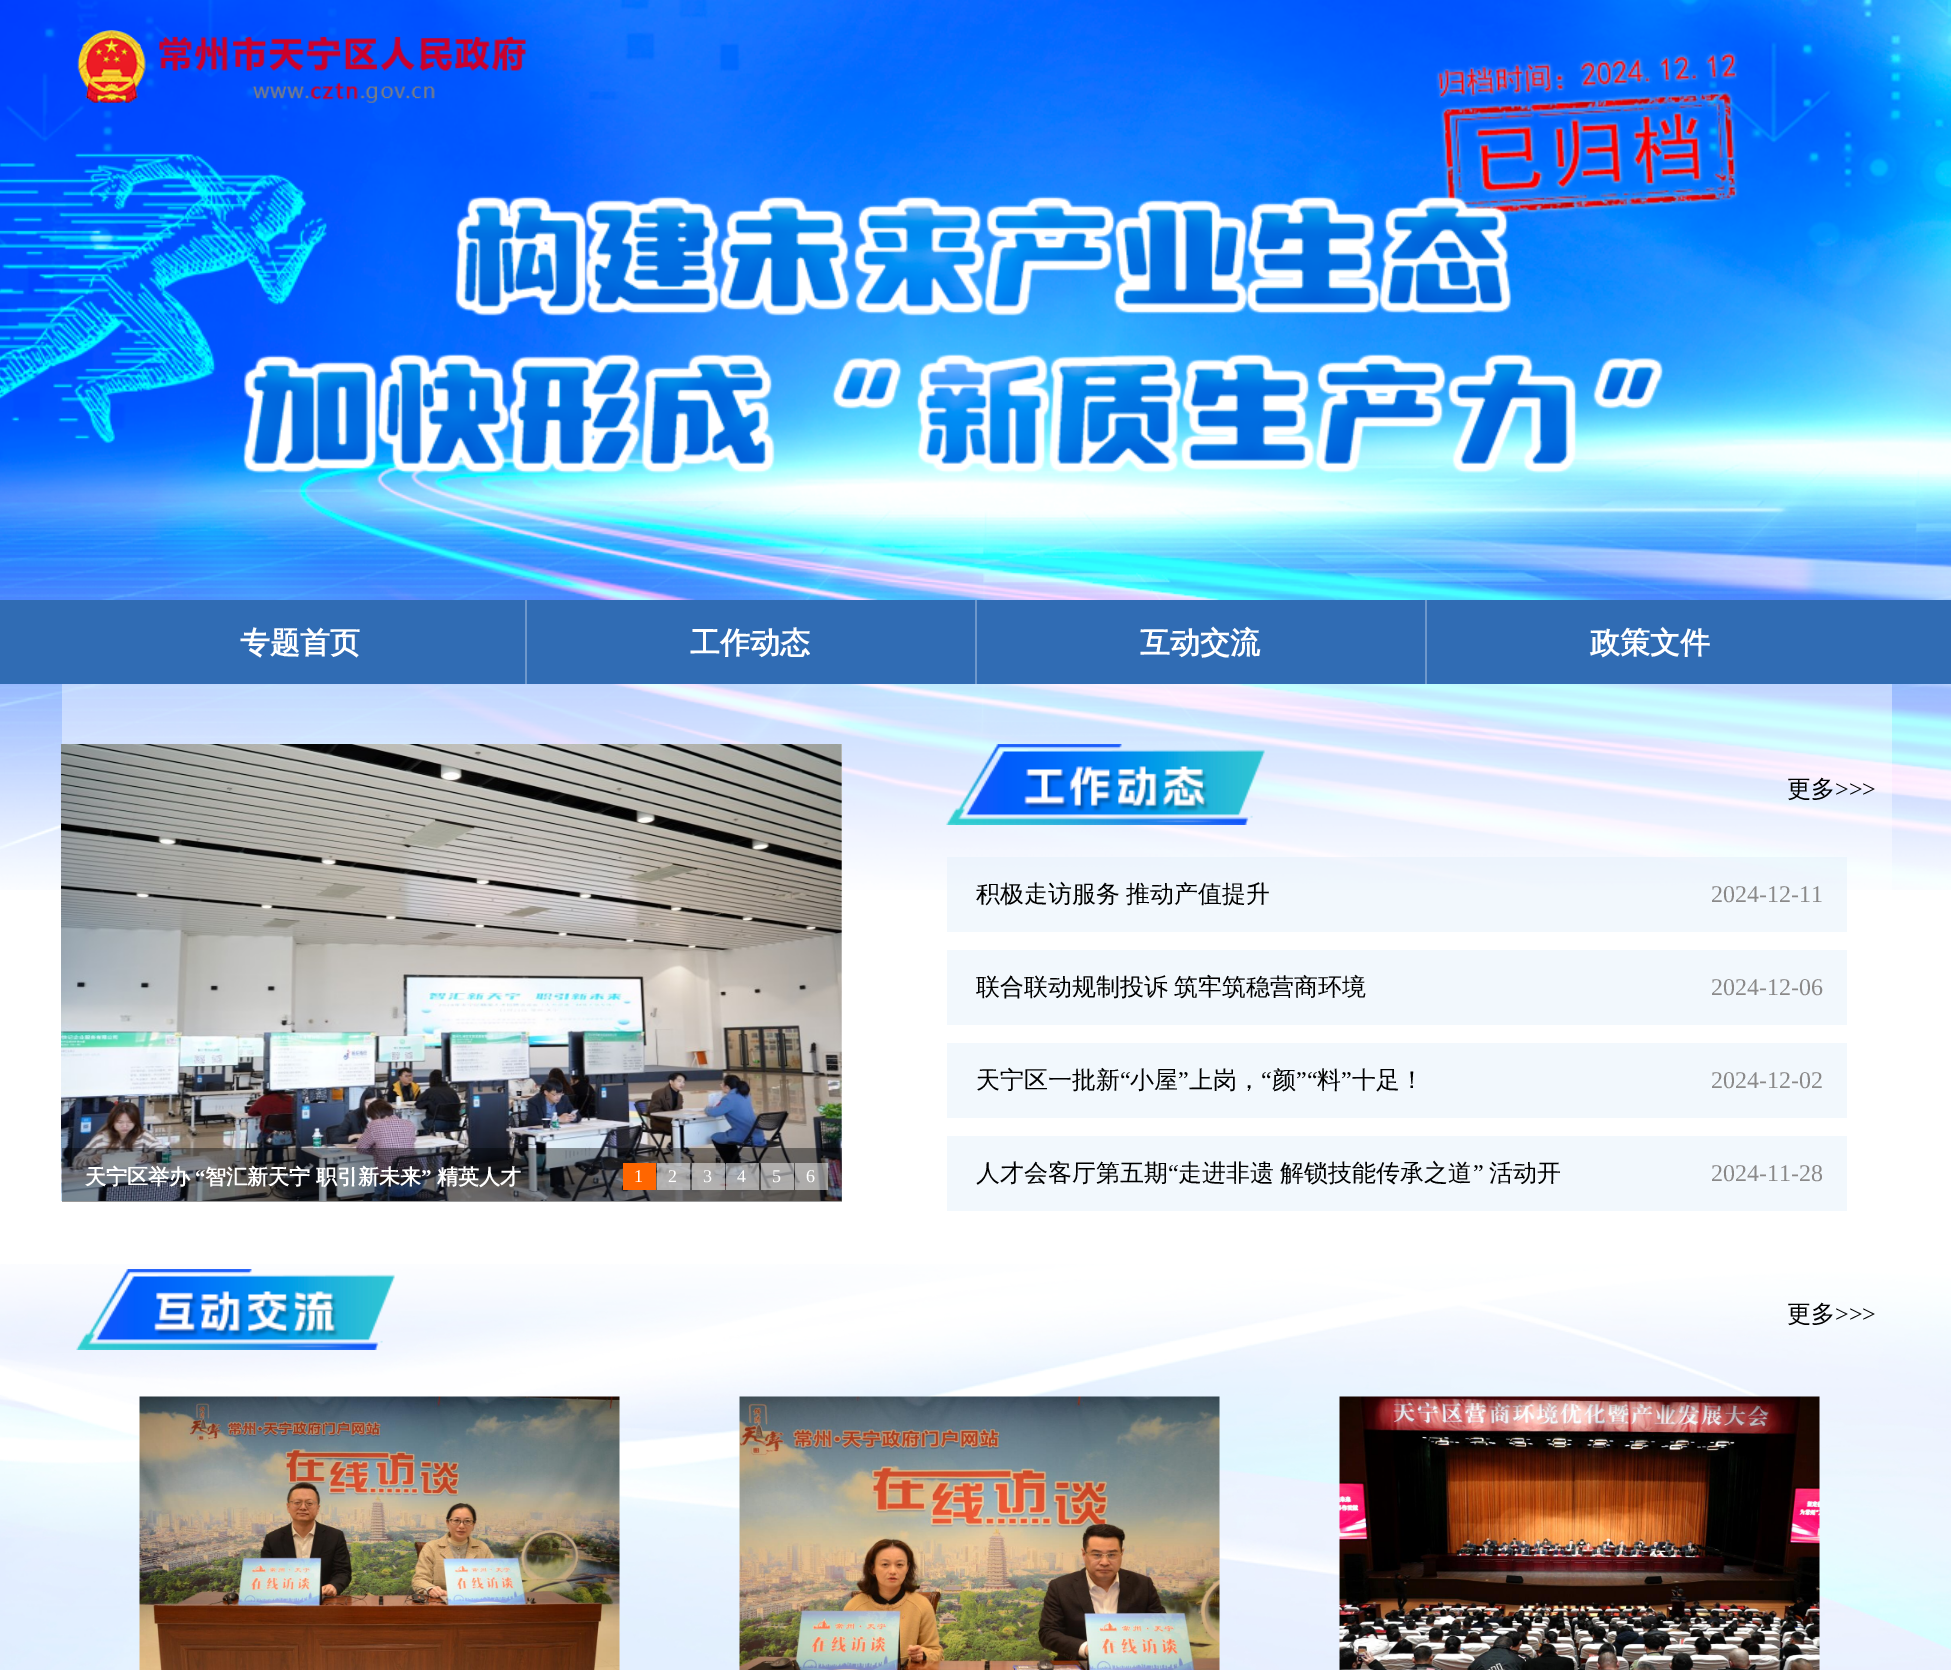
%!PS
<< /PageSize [1951 1670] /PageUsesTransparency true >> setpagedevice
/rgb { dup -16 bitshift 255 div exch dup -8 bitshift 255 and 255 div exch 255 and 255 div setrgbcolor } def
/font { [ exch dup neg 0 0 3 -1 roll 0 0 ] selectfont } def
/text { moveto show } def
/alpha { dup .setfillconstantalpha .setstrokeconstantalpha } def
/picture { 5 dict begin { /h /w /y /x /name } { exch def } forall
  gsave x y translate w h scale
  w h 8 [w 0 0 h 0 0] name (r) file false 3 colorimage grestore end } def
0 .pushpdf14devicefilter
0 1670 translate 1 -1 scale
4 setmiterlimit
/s1 { /WenQuanYiZenHei-Bold 30 font 16#FFFFFF rgb } def
/s2 { /WenQuanYiZenHei-Bold 21 font 16#FFFFFF rgb } def
/s3 { /LiberationSerif-Bold 21 font 16#FFFFFF rgb } def
/s4 { /LiberationSerif-Regular 18 font 16#FFFFFF rgb } def
/s5 { /WenQuanYiZenHei-Medium 24 font 16#000000 rgb } def
/s6 { /LiberationSerif-Regular 24 font 16#000000 rgb } def
/s7 { /LiberationSerif-Regular 24 font 16#8A8989 rgb } def
16#FFFFFF rgb
0 0 1951 1670 rectfill
(pic1.raw) 0 0 1951 600 picture
(pic2.raw) 77 30 449 73 picture
(pic3.raw) 243 196 1421 277 picture
16#306CB4 rgb
0 600 1951 84 rectfill
16#6E98CB rgb
525 600 2 84 rectfill
s1
(专题首页) 240 653 text
16#6E98CB rgb
975 600 2 84 rectfill
s1
(工作动态) 690 653 text
16#6E98CB rgb
1425 600 2 84 rectfill
s1
(互动交流) 1140 653 text
(政策文件) 1590 653 text
(pic4.raw) 0 684 1951 206 picture
62 744 780 146 rectfill
(pic5.raw) 61 744 781 457 picture
0.4 alpha
16#000000 rgb
62 1148 780 54 rectfill
1 alpha
s2
(天宁区举办) 85 1184 text
s3
(“) 195 1184 text
s2
(智汇新天宁 职引新未来) 205 1184 text
s3
(”) 421 1184 text
s2
(精英人才) 437 1184 text
16#FF6600 rgb
623 1163 33 27 rectfill
s4
(1) 634 1182 text
0.5 alpha
657 1163 33 27 rectfill
1 alpha
(2) 668 1182 text
0.5 alpha
692 1163 33 27 rectfill
1 alpha
(3) 703 1182 text
0.5 alpha
726 1163 33 27 rectfill
1 alpha
(4) 737 1182 text
0.5 alpha
761 1163 33 27 rectfill
1 alpha
(5) 772 1182 text
0.5 alpha
795 1163 33 27 rectfill
1 alpha
(6) 806 1182 text
(pic6.raw) 946 744 319 81 picture
s5
(更多) 1787 797 text
s6
(>>>) 1835 797 text
0.4 alpha
16#DFEDFB rgb
947 857 900 75 rectfill
/WenQuanYiZenHei-Medium 24 font
1 alpha
16#000000 rgb
976 902 moveto -1 0 32 (积极走访服务 推动产值提升) widthshow
s7
(2024-12-11) 1711 902 text
16#F2F8FD rgb
947 950 900 75 rectfill
/WenQuanYiZenHei-Medium 24 font
16#000000 rgb
976 995 moveto -1 0 32 (联合联动规制投诉 筑牢筑稳营商环境) widthshow
s7
(2024-12-06) 1711 995 text
16#F2F8FD rgb
947 1043 900 75 rectfill
s5
(天宁区一批新) 976 1088 text
s6
(“) 1120 1088 text
s5
(小屋) 1130 1088 text
s6
(”) 1178 1088 text
s5
(上岗，) 1189 1088 text
s6
(“) 1261 1088 text
s5
(颜) 1272 1088 text
s6
(”“) 1296 1088 text
s5
(料) 1317 1088 text
s6
(”) 1341 1088 text
s5
(十足！) 1352 1088 text
s7
(2024-12-02) 1711 1088 text
16#F2F8FD rgb
947 1136 900 75 rectfill
s5
(人才会客厅第五期) 976 1181 text
s6
(“) 1168 1181 text
/WenQuanYiZenHei-Medium 24 font
1178 1181 moveto -1 0 32 (走进非遗 解锁技能传承之道) widthshow
s6
(”) 1473 1181 text
s5
(活动开) 1489 1181 text
s7
(2024-11-28) 1711 1181 text
(pic7.raw) 0 1264 1951 406 picture
(pic8.raw) 76 1269 319 81 picture
s5
(更多) 1787 1322 text
s6
(>>>) 1835 1322 text
(pic9.raw) 139 1396 481 274 picture
(pic10.raw) 739 1396 481 274 picture
(pic11.raw) 1339 1396 481 274 picture
.poppdf14devicefilter showpage
